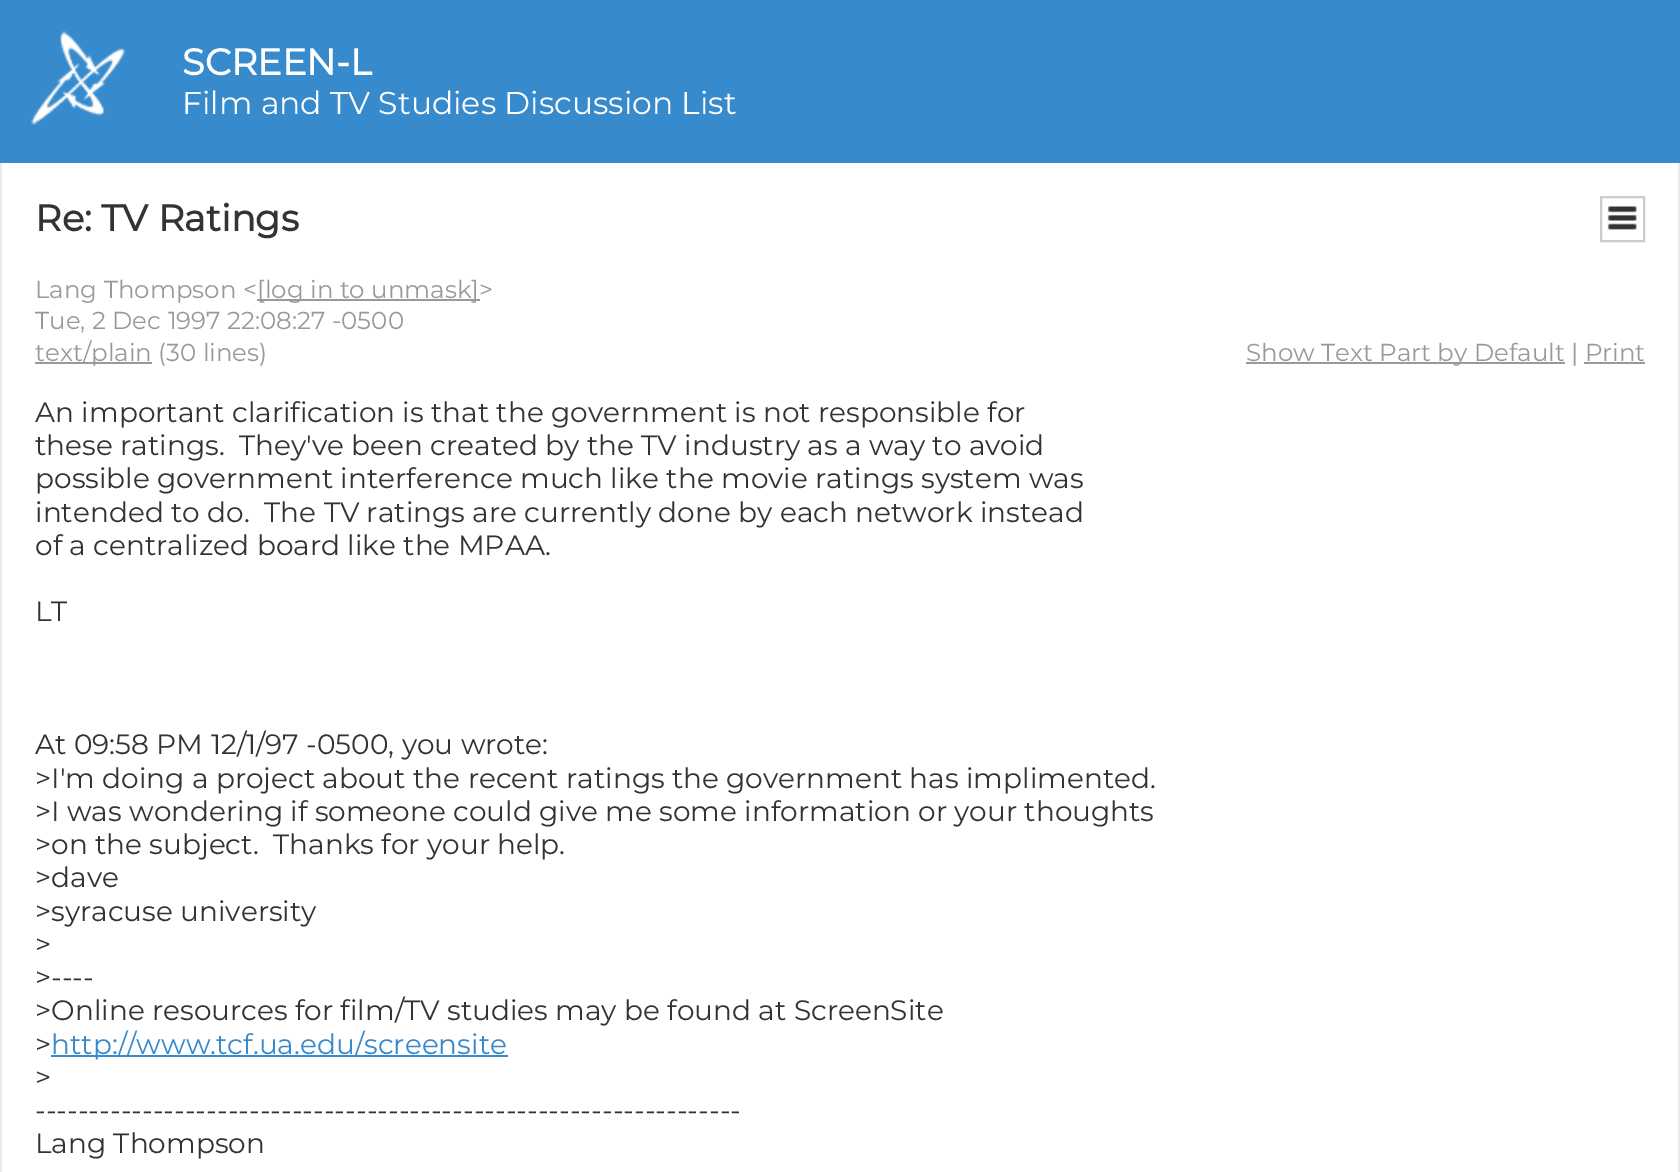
%!PS
<< /PageSize [1680 1172] >> setpagedevice
/rgb { dup -16 bitshift 255 div exch dup -8 bitshift 255 and 255 div exch 255 and 255 div setrgbcolor } def
/font { [ exch dup neg 0 0 3 -1 roll 0 0 ] selectfont } def
/text { moveto show } def
/picture { 5 dict begin { /h /w /y /x /name } { exch def } forall
  gsave x y translate w h scale
  w h 8 [w 0 0 h 0 0] name (r) file false 3 colorimage grestore end } def
0 1172 translate 1 -1 scale
4 setmiterlimit
/s1 { /Montserrat-Bold 36.75 font 16#FFFFFF rgb } def
/s2 { /Montserrat-Thin 31.5 font 16#FFFFFF rgb } def
/s3 { /Montserrat-Bold 36.75 font 16#333333 rgb } def
/s4 { /Montserrat-Thin 24.5 font 16#999999 rgb } def
/s5 { /Montserrat-Thin 28 font 16#333333 rgb } def
/s6 { /Montserrat-Thin 28 font 16#378ACC rgb } def
16#378ACC rgb
0 0 1680 1172 rectfill
(pic1.raw) 31 31 94 94 picture
s1
(SCREEN-L) 182 75 text
s2
(Film and TV Studies Discussion List) 182 114 text
2 163 1676 1009 rectfill
16#EAEAEA rgb
1678 163 2 1009 rectfill
0 163 2 1009 rectfill
16#CCCCCC rgb
2 setlinewidth
1601 197 43 44 rectstroke
(pic2.raw) 1607 206 30 24 picture
s3
(Re: TV Ratings) 35 231 text
s4
(Lang Thompson <) 35 298 text
257 299 223 2 rectfill
([log in to unmask]>) 257 298 text
(Tue, 2 Dec 1997 22:08:27 -0500) 35 329 text
35 362 117 2 rectfill
(text/plain \(30 lines\)) 35 361 text
1246 362 319 2 rectfill
(Show Text Part by Default | Print) 1246 361 text
1584 362 61 2 rectfill
s5
(An important clarification is that the government is not responsible for) 35 422 text
(these ratings.  They've been created by the TV industry as a way to avoid) 35 455 text
(possible government interference much like the movie ratings system was) 35 488 text
(intended to do.  The TV ratings are currently done by each network instead) 35 522 text
(of a centralized board like the MPAA.) 35 555 text
(LT) 35 621 text
(At 09:58 PM 12/1/97 -0500, you wrote:) 35 754 text
(>I'm doing a project about the recent ratings the government has implimented.) 35 788 text
(>I was wondering if someone could give me some information or your thoughts) 35 821 text
(>on the subject.  Thanks for your help.) 35 854 text
(>dave) 35 887 text
(>syracuse university) 35 921 text
(>) 35 954 text
(>----) 35 987 text
(>Online resources for film/TV studies may be found at ScreenSite) 35 1020 text
(>) 35 1054 text
16#378ACC rgb
51 1055 457 2 rectfill
(http://www.tcf.ua.edu/screensite) 51 1054 text
s5
(>) 35 1087 text
(------------------------------------------------------------------) 35 1120 text
(Lang Thompson) 35 1153 text
showpage
